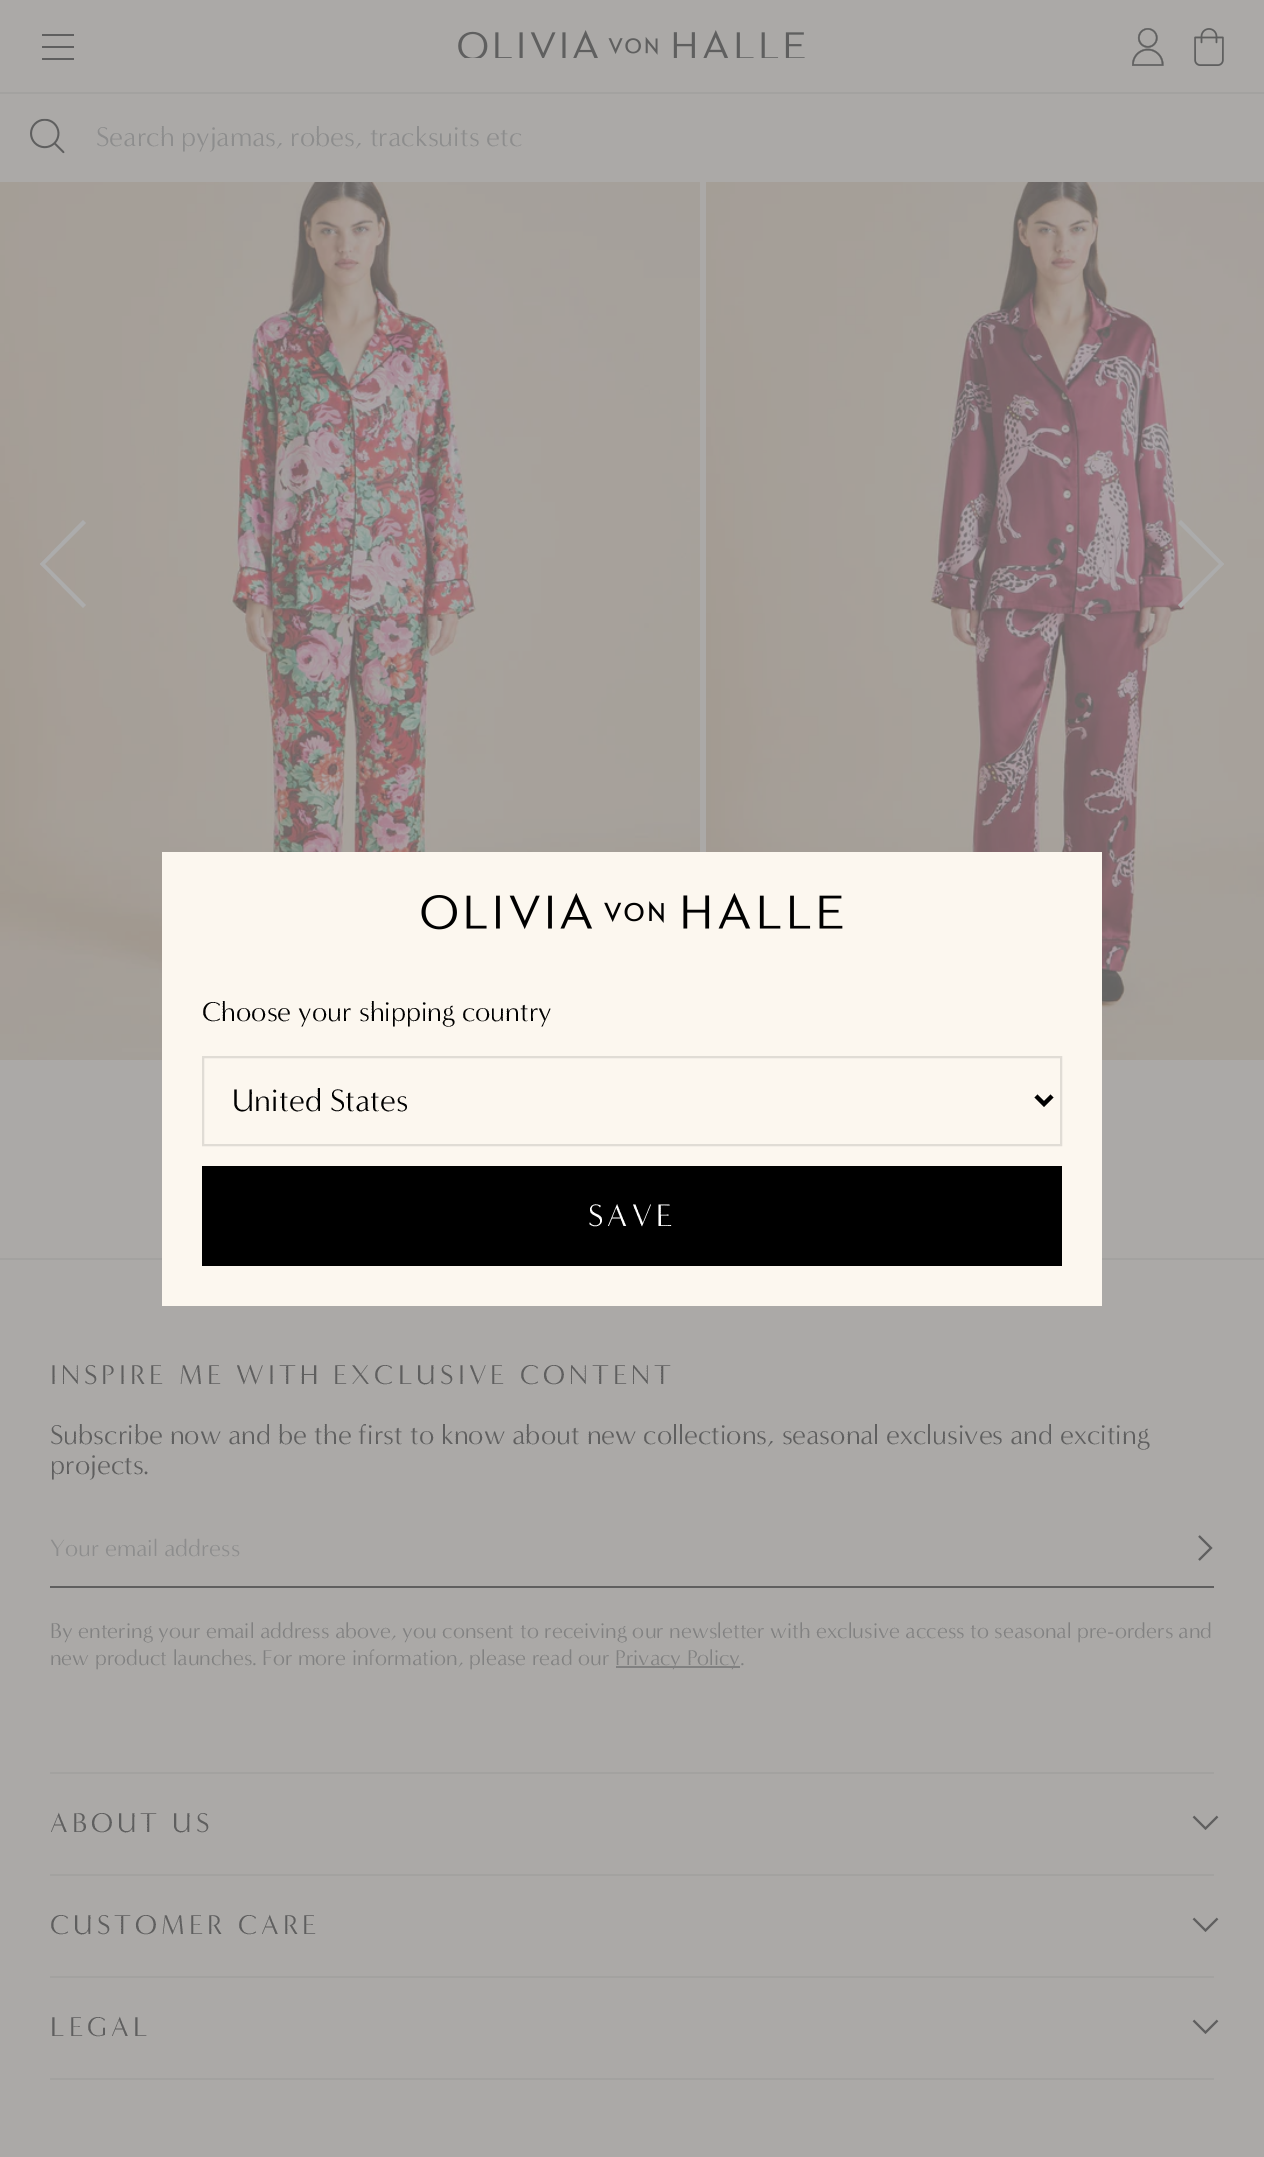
%!PS
<< /PageSize [1264 2157] >> setpagedevice
/rgb { dup -16 bitshift 255 div exch dup -8 bitshift 255 and 255 div exch 255 and 255 div setrgbcolor } def
/font { [ exch dup neg 0 0 3 -1 roll 0 0 ] selectfont } def
/text { moveto show } def
/picture { 5 dict begin { /h /w /y /x /name } { exch def } forall
  gsave x y translate w h scale
  w h 8 [w 0 0 h 0 0] name (r) file false 3 colorimage grestore end } def
0 2157 translate 1 -1 scale
4 setmiterlimit
/s1 { /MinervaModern-Regular 28 font 16#8D8D8D rgb } def
/s2 { /MinervaModern-Regular 28 font 16#5F5F5F rgb } def
/s3 { /MinervaModern-Regular 24 font 16#8D8D8D rgb } def
/s4 { /MinervaModern-Regular 22 font 16#818181 rgb } def
/s5 { /MinervaModern-Regular 28 font 16#000000 rgb } def
/s6 { /MinervaModern-Regular 32 font 16#000000 rgb } def
16#ABA9A7 rgb
0 0 1264 2157 rectfill
(pic1.raw) 42 34 32 26 picture
(pic2.raw) 458 30 347 28 picture
(pic3.raw) 1132 28 32 38 picture
(pic4.raw) 1194 28 30 38 picture
16#A3A2A0 rgb
0 92 1264 2 rectfill
(pic5.raw) 30 118 35 36 picture
s1
(Search pyjamas, robes, tracksuits etc) 96 146 text
(pic6.raw) 0 182 700 878 picture
(pic7.raw) 706 182 558 878 picture
16#ACACAC rgb
43 566 moveto 40 564 lineto 83 520 lineto 86 523 lineto closepath fill
86 605 moveto 83 608 lineto 40 564 lineto 43 562 lineto closepath fill
1178 523 moveto 1181 520 lineto 1224 564 lineto 1221 566 lineto closepath fill
1221 562 moveto 1224 564 lineto 1181 608 lineto 1178 605 lineto closepath fill
16#A3A2A0 rgb
0 1258 1264 2 rectfill
16#5F5F5F rgb
50 1384 moveto 4 0 (INSPIRE ME WITH EXCLUSIVE CONTENT) ashow
(Subscribe now and be the first to know about new collections, seasonal exclusives and exciting) 50 1444 text
(projects.) 50 1474 text
50 1586 1164 2 rectfill
s3
(Your email address) 50 1556 text
16#5F5F5F rgb
2 setlinewidth
1199 1536 moveto 1211 1548 lineto 1199 1560 lineto stroke
s4
(By entering your email address above, you consent to receiving our newsletter with exclusive access to seasonal pre-orders and) 50 1638 text
(new product launches. For more information, please read our) 50 1665 text
616 1666 124 2 rectfill
(Privacy Policy.) 615 1665 text
16#A3A2A0 rgb
50 1772 1164 2 rectfill
50 1874 1164 2 rectfill
/MinervaModern-Regular 28 font
16#5F5F5F rgb
50 1832 moveto 4 0 (ABOUT US) ashow
1217.5 1816.5 moveto 1205.5 1828.5 lineto 1193.5 1816.5 lineto stroke
16#A3A2A0 rgb
50 1976 1164 2 rectfill
16#5F5F5F rgb
50 1934 moveto 4 0 (CUSTOMER CARE) ashow
1217.5 1918.5 moveto 1205.5 1930.5 lineto 1193.5 1918.5 lineto stroke
16#A3A2A0 rgb
50 2078 1164 2 rectfill
16#5F5F5F rgb
50 2036 moveto 4 0 (LEGAL) ashow
1217.5 2020.5 moveto 1205.5 2032.5 lineto 1193.5 2020.5 lineto stroke
16#FCF7EF rgb
162 852 940 454 rectfill
(pic8.raw) 421 893 422 37 picture
s5
(Choose your shipping country) 202 1021 text
16#E0DCD5 rgb
203 1057 858 88 rectstroke
16#000000 rgb
4 setlinewidth
1036 1096 moveto 1044 1104 lineto 1052 1096 lineto stroke
s6
(United States) 232 1111 text
202 1166 860 100 rectfill
16#FFFFFF rgb
588 1226 moveto 4 0 (SAVE) ashow
showpage
